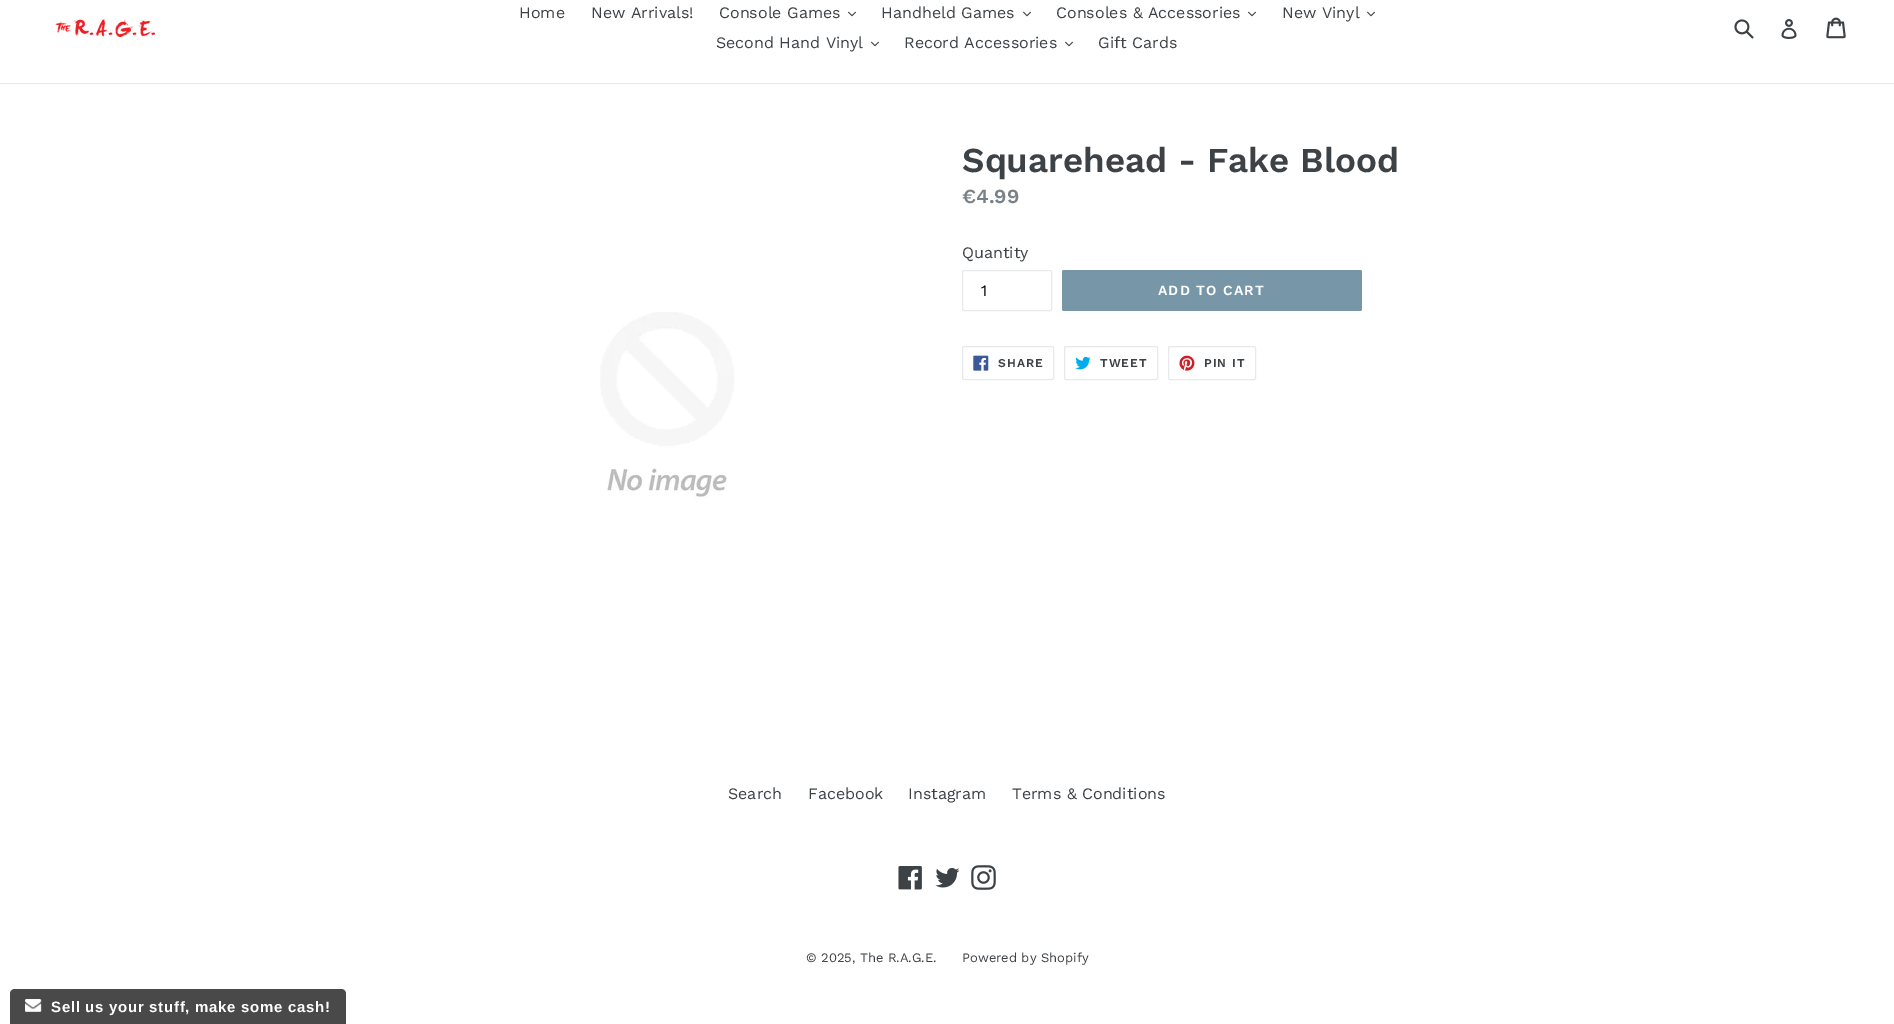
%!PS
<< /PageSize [1894 1024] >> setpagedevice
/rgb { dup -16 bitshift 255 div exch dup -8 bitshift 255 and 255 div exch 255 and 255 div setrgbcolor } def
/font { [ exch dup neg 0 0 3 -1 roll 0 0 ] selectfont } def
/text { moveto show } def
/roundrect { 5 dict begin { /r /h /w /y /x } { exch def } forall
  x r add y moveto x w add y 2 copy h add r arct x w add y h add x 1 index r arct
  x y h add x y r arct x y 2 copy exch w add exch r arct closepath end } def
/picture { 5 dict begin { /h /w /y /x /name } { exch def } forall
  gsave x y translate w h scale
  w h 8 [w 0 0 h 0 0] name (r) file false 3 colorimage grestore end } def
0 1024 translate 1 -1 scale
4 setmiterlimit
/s1 { /WorkSans-Regular 16 font 16#3D4246 rgb } def
/s2 { /WorkSans-SemiBold 35 font 16#3D4246 rgb } def
/s3 { /WorkSans-SemiBold 20 font 16#788188 rgb } def
/s4 { /WorkSans-Regular 16 font 16#000000 rgb } def
/s5 { /WorkSans-Regular 13 font 16#3D4246 rgb } def
16#FFFFFF rgb
0 0 1894 1024 rectfill
16#E8E9EB rgb
0 83 1894 1 rectfill
(pic1.raw) 55 19 100 18 picture
s1
(Home) 519 18 text
(New Arrivals!) 591 18 text
(Console Games) 719 18 text
(pic2.raw) 848 11 8 6 picture
(Handheld Games) 881 18 text
(pic2.raw) 1023 11 8 6 picture
(Consoles & Accessories) 1056 18 text
(pic2.raw) 1248 11 8 6 picture
(New Vinyl) 1282 18 text
(pic2.raw) 1367 11 8 6 picture
(Second Hand Vinyl) 716 48 text
(pic2.raw) 871 41 8 6 picture
(Record Accessories) 904 48 text
(pic2.raw) 1065 41 8 6 picture
(Gift Cards) 1098 48 text
(pic3.raw) 1734 19 20 20 picture
(pic4.raw) 1781 19 16 20 picture
(pic5.raw) 1826 17 20 22 picture
s2
(Squarehead - Fake Blood) 962 172 text
s3
(€4.99) 962 203 text
s1
(Quantity) 962 258 text
16#E8E9EB rgb
962.5 270.5 89 40 1.5 roundrect stroke
s4
(1) 981 296 text
16#7796A8 rgb
1062 270 300 41 2 roundrect fill
/WorkSans-SemiBold 14 font
16#FFFFFF rgb
1158 295 moveto 1.1 0 (ADD TO CART) ashow
16#E8E9EB rgb
962.5 346.5 91 33 1.5 roundrect stroke
(pic6.raw) 973 355 16 16 picture
/WorkSans-SemiBold 12 font
16#3D4246 rgb
998 367 moveto 1 0 (SHARE) ashow
16#E8E9EB rgb
1064.5 346.5 93 33 1.5 roundrect stroke
(pic7.raw) 1075 356 16 14 picture
16#3D4246 rgb
1100 367 moveto 1 0 (TWEET) ashow
16#E8E9EB rgb
1168.5 346.5 87 33 1.5 roundrect stroke
(pic8.raw) 1179 355 16 16 picture
16#3D4246 rgb
1204 367 moveto 1 0 (PIN IT) ashow
(pic9.raw) 600 312 134 187 picture
s1
(Search) 728 799 text
(Facebook) 808 799 text
(Instagram) 908 799 text
(Terms & Conditions) 1012 799 text
(pic10.raw) 898 866 24 24 picture
(pic11.raw) 935 868 25 20 picture
(pic12.raw) 971 865 25 25 picture
s5
(© 2025, The R.A.G.E.) 806 962 text
(Powered by Shopify) 962 962 text
16#494949 rgb
15 989 moveto 341 989 lineto 344 989 346 991 346 994 curveto 346 1024 lineto 10 1024 lineto 10 994 lineto 10 991 12 989 15 989 curveto closepath fill
(pic13.raw) 25 999 17 13 picture
/LiberationSans-Bold 15 font
16#FFFFFF rgb
51 1012 moveto 0.7 0 (Sell us your stuff, make some cash!) ashow
showpage
